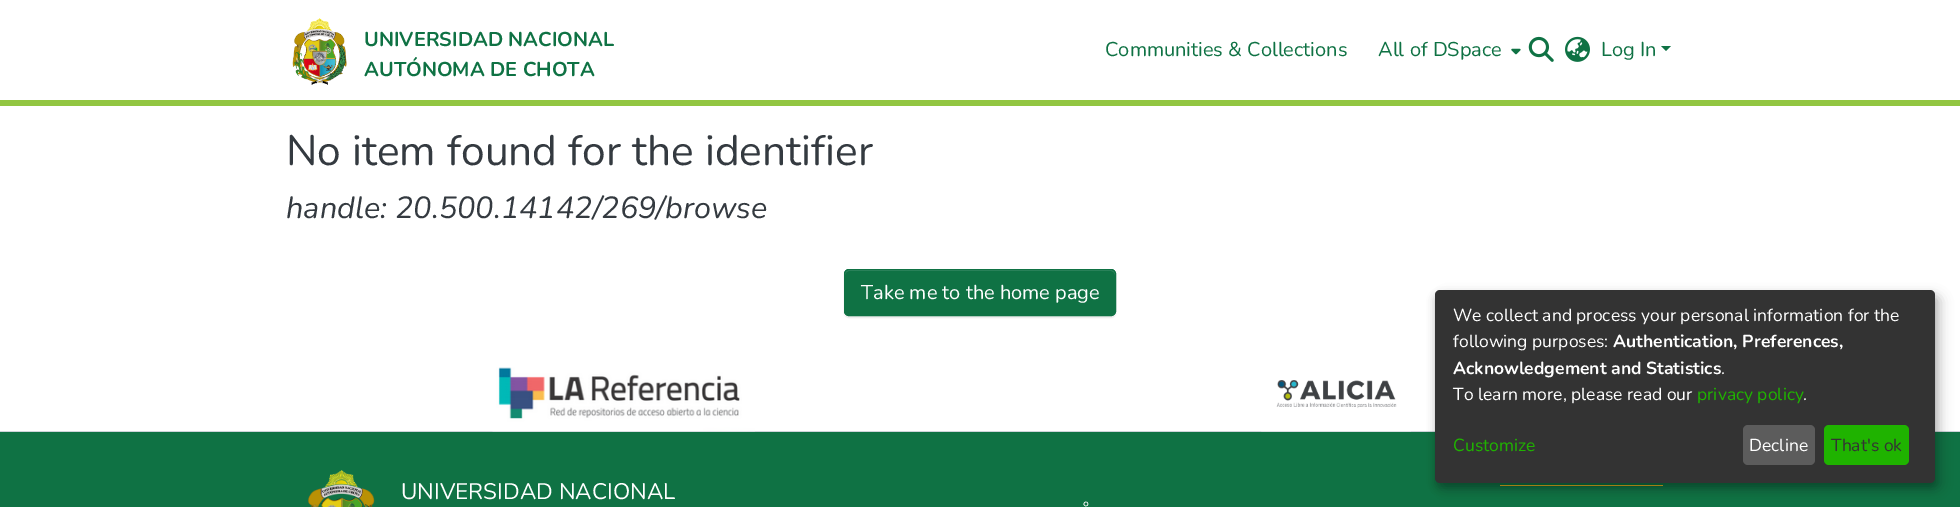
%!PS
<< /PageSize [1960 507] /PageUsesTransparency true >> setpagedevice
/rgb { dup -16 bitshift 255 div exch dup -8 bitshift 255 and 255 div exch 255 and 255 div setrgbcolor } def
/font { [ exch dup neg 0 0 3 -1 roll 0 0 ] selectfont } def
/text { moveto show } def
/alpha { dup .setfillconstantalpha .setstrokeconstantalpha } def
/roundrect { 5 dict begin { /r /h /w /y /x } { exch def } forall
  x r add y moveto x w add y 2 copy h add r arct x w add y h add x 1 index r arct
  x y h add x y r arct x y 2 copy exch w add exch r arct closepath end } def
/shadow { 12 dict begin { /a /b /q /h /w /y /x } { exch def } forall gsave /was 0 def
  9 -2 -9 { dup b mul 4 div /e exch def 1 sub .425 mul 2.718 exch exp 1 add a .99 .min exch div /now exch def
    1 1 now sub 1 was sub div sub alpha /was now def
    w h .min e 2 mul add 0 gt { x e sub y e sub w e 2 mul add h e 2 mul add
      q e add b .6 mul add w h .min 2 div e add .min 0 .max roundrect fill } if } for grestore end } def
/picture { 5 dict begin { /h /w /y /x /name } { exch def } forall
  gsave x y translate w h scale
  w h 8 [w 0 0 h 0 0] name (r) file false 3 colorimage grestore end } def
0 .pushpdf14devicefilter
0 507 translate 1 -1 scale
4 setmiterlimit
/s1 { /Nunito-Bold 20 font 16#0F7244 rgb } def
/s2 { /Nunito-Regular 20 font 16#0F7244 rgb } def
/s3 { /Nunito-Regular 42.5 font 16#343A40 rgb } def
/s4 { /Nunito-Italic 30.6 font 16#343A40 rgb } def
/s5 { /Nunito-Regular 20 font 16#FFFFFF rgb } def
/s6 { /Nunito-Regular 22.5 font 16#FFFFFF rgb } def
/s7 { /Nunito-Regular 16 font 16#FFFFFF rgb } def
/s8 { /Nunito-Regular 17.5 font 16#FFFFFF rgb } def
/s9 { /Nunito-Bold 17.5 font 16#FFFFFF rgb } def
/s10 { /Nunito-Regular 17.5 font 16#1FB300 rgb } def
/s11 { /Nunito-Regular 17.5 font 16#333333 rgb } def
16#FFFFFF rgb
0 0 1960 507 rectfill
16#92C642 rgb
0 100 1960 6 rectfill
(pic1.raw) 292 18 55 67 picture
s1
(UNIVERSIDAD NACIONAL) 364 46 text
(AUTÓNOMA DE CHOTA) 364 76 text
s2
(Communities & Collections) 1105 56 text
(All of DSpace) 1378 56 text
(pic2.raw) 1511 48 10 7 picture
(pic3.raw) 1528 36 26 26 picture
(pic4.raw) 1565 36 25 26 picture
(Log In) 1601 56 text
1661 46 moveto 1671 46 lineto 1666 51 lineto closepath fill
s3
(No item found for the identifier) 286 165 text
s4
(handle: 20.500.14142/269/browse) 286 218 text
16#000000 rgb
844 270 272 48 5 0.5 0.07 shadow
16#0F7244 rgb
844 269 272 47 5 roundrect fill
16#338760 rgb
849 271 moveto 1111 271 lineto 1113 271 1115 273 1115 275 curveto 1115 272 1114 270 1111 270 curveto 849 270 lineto 846 270 845 272 845 275 curveto 845 273 847 271 849 271 curveto closepath fill
16#0F7244 rgb
844.5 269.5 271 46 4.5 roundrect stroke
s5
(Take me to the home page) 861 299 text
16#CED4DA rgb
0 431 1960 1 rectfill
(pic5.raw) 492 367 263 65 picture
(pic6.raw) 1261 380 150 52 picture
16#0F7244 rgb
0 432 1960 75 rectfill
(pic7.raw) 307 470 68 37 picture
s6
(UNIVERSIDAD NACIONAL) 401 499 text
16#DCA71C rgb
1500 485 163 1 rectfill
s7
(°) 1083 513 text
16#000000 rgb
1441 296 500 193 5 6 0.19 shadow
1435 295 500 193 5 4 0.2 shadow
16#333333 rgb
1435 290 500 193 5 roundrect fill
s8
(We collect and process your personal information for the) 1453 321 text
(following purposes:) 1453 347 text
s9
(Authentication, Preferences,) 1613 347 text
(Acknowledgement and Statistics) 1453 374 text
s8
(.) 1721 374 text
(To learn more, please read our) 1453 400 text
s10
(privacy policy) 1697 400 text
s8
(.) 1803 400 text
s10
(Customize) 1453 451 text
16#5C5C5C rgb
1743 425 72 40 5 roundrect fill
s8
(Decline) 1749 451 text
16#1FB300 rgb
1824 425 85 40 5 roundrect fill
s11
(That's ok) 1831 451 text
.poppdf14devicefilter showpage
